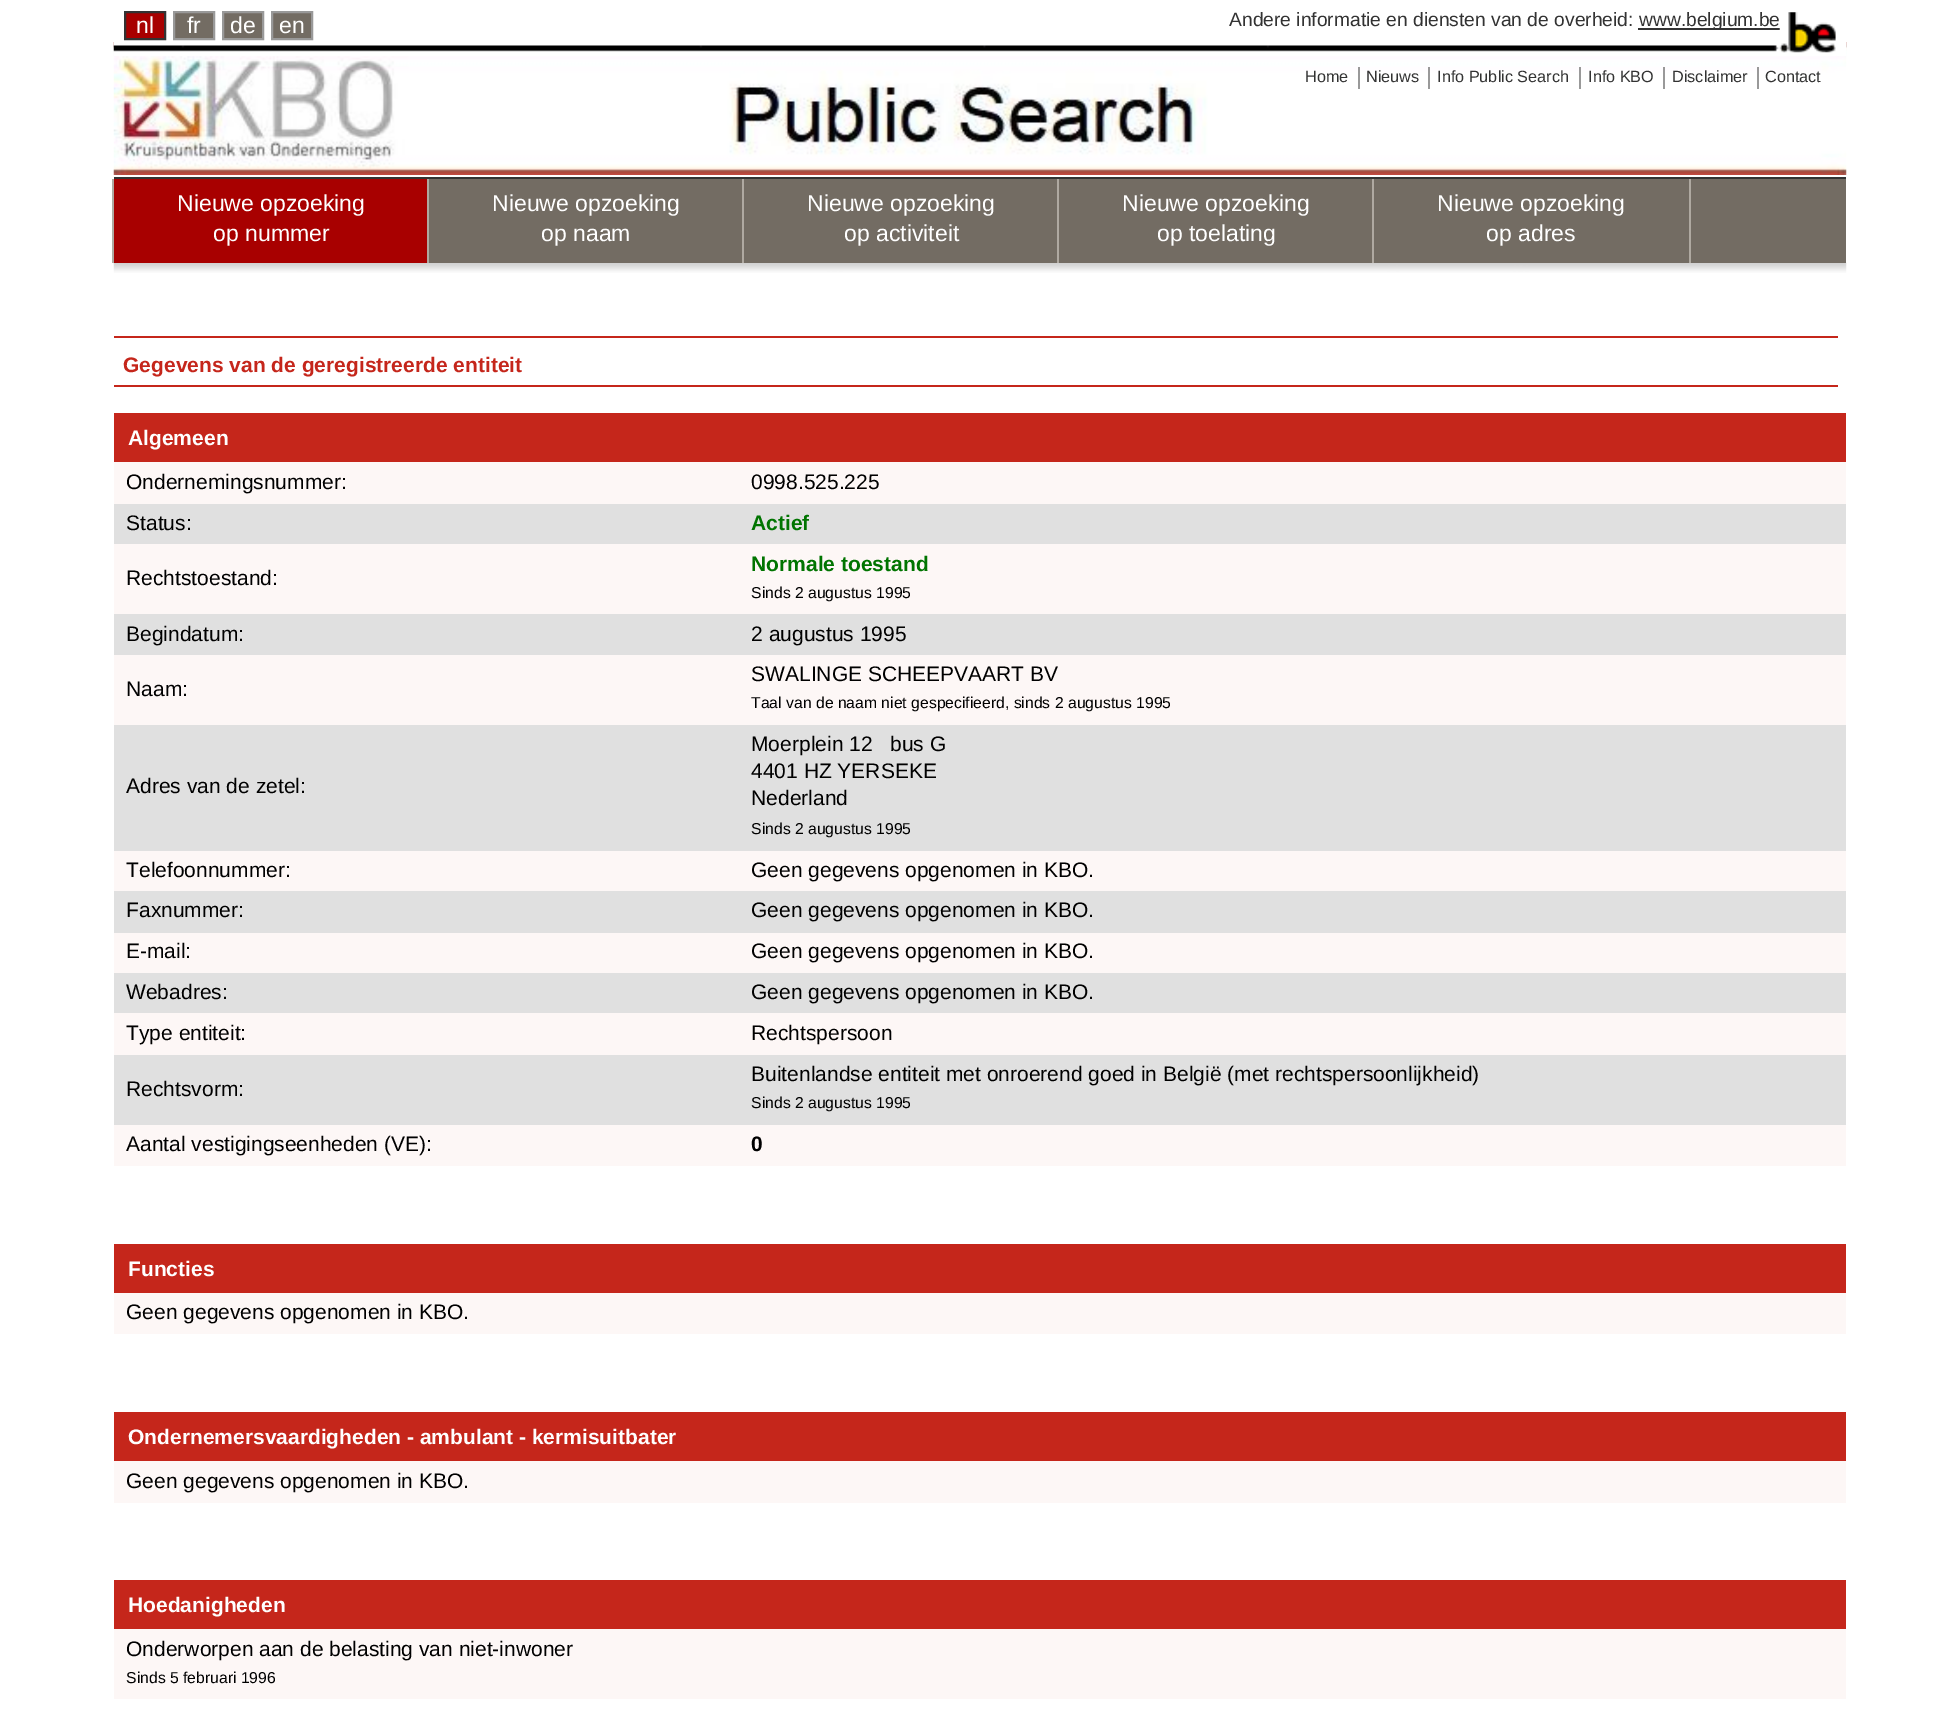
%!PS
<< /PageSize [1960 1713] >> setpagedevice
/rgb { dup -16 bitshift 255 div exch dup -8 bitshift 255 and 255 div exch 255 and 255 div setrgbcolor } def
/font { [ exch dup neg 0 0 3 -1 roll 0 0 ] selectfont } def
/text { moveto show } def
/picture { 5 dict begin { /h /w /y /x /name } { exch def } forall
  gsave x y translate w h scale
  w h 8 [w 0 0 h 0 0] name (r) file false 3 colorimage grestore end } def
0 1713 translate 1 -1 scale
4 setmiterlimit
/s1 { /LiberationSans-Regular 23 font 16#FFFFFF rgb } def
/s2 { /LiberationSans-Regular 19.25 font 16#333333 rgb } def
/s3 { /LiberationSans-Regular 16.25 font 16#333333 rgb } def
/s4 { /LiberationSans-Bold 21 font 16#C5261B rgb } def
/s5 { /LiberationSans-Bold 21 font 16#FFFFFF rgb } def
/s6 { /LiberationSans-Regular 21 font 16#000000 rgb } def
/s7 { /LiberationSans-Bold 21 font 16#007400 rgb } def
/s8 { /LiberationSans-Regular 15.75 font 16#000000 rgb } def
/s9 { /LiberationSans-Bold 21 font 16#000000 rgb } def
16#FFFFFF rgb
0 0 1960 1713 rectfill
(pic1.raw) 113 42 1734 133 picture
114 42 1732 14 rectfill
(pic2.raw) 113 45 1666 7 picture
16#A80000 rgb
125 12 moveto 165 12 lineto 165 39 lineto 125 39 lineto closepath gsave fill grestore
16#333333 rgb
2 setlinewidth
stroke
s1
(nl) 136 33 text
16#736C63 rgb
174 12 moveto 214 12 lineto 214 39 lineto 174 39 lineto closepath gsave fill grestore
16#999999 rgb
stroke
s1
(fr) 187 33 text
16#736C63 rgb
223 12 moveto 263 12 lineto 263 39 lineto 223 39 lineto closepath gsave fill grestore
16#999999 rgb
stroke
s1
(de) 230 33 text
16#736C63 rgb
272 12 moveto 312 12 lineto 312 39 lineto 272 39 lineto closepath gsave fill grestore
16#999999 rgb
stroke
s1
(en) 279 33 text
s2
(Andere informatie en diensten van de overheid:) 1229 26 text
1638 28 142 2 rectfill
(www.belgium.be) 1639 26 text
(pic3.raw) 1779 12 57 41 picture
s3
(Home) 1305 82 text
16#999999 rgb
1358 67 2 22 rectfill
s3
(Nieuws) 1366 82 text
16#999999 rgb
1428 67 2 22 rectfill
s3
(Info Public Search) 1437 82 text
16#999999 rgb
1579 67 2 22 rectfill
s3
(Info KBO) 1588 82 text
16#999999 rgb
1663 67 2 22 rectfill
s3
(Disclaimer) 1672 82 text
16#999999 rgb
1757 67 2 22 rectfill
s3
(Contact) 1765 82 text
(pic4.raw) 113 262 1734 11 picture
16#736C63 rgb
1691 179 155 84 rectfill
16#333333 rgb
114 177 1732 2 rectfill
16#A80000 rgb
114 179 313 84 rectfill
16#AFA9A1 rgb
112 179 2 84 rectfill
s1
(Nieuwe opzoeking) 177 211 text
(op nummer) 213 241 text
16#736C63 rgb
429 179 313 84 rectfill
16#AFA9A1 rgb
427 179 2 84 rectfill
s1
(Nieuwe opzoeking) 492 211 text
(op naam) 541 241 text
16#736C63 rgb
744 179 313 84 rectfill
16#AFA9A1 rgb
742 179 2 84 rectfill
s1
(Nieuwe opzoeking) 807 211 text
(op activiteit) 844 241 text
16#736C63 rgb
1059 179 313 84 rectfill
16#AFA9A1 rgb
1057 179 2 84 rectfill
s1
(Nieuwe opzoeking) 1122 211 text
(op toelating) 1157 241 text
16#736C63 rgb
1374 179 315 84 rectfill
16#AFA9A1 rgb
1689 179 2 84 rectfill
1372 179 2 84 rectfill
s1
(Nieuwe opzoeking) 1437 211 text
(op adres) 1486 241 text
16#C5261B rgb
114 336 1724 2 rectfill
114 385 1724 2 rectfill
s4
(Gegevens van de geregistreerde entiteit) 123 372 text
114 413 1732 49 rectfill
s5
(Algemeen) 128 445 text
16#FDF7F6 rgb
114 462 1732 42 rectfill
s6
(Ondernemingsnummer:) 126 489 text
(0998.525.225) 751 489 text
16#E0E0E0 rgb
114 504 1732 40 rectfill
s6
(Status:) 126 530 text
s7
(Actief) 751 530 text
16#FDF7F6 rgb
114 544 1732 70 rectfill
s6
(Rechtstoestand:) 126 585 text
s7
(Normale toestand) 751 571 text
s8
(Sinds 2 augustus 1995) 751 598 text
16#E0E0E0 rgb
114 614 1732 41 rectfill
s6
(Begindatum:) 126 641 text
(2 augustus 1995) 751 641 text
16#FDF7F6 rgb
114 655 1732 70 rectfill
s6
(Naam:) 126 696 text
(SWALINGE SCHEEPVAART BV) 751 681 text
s8
(Taal van de naam niet gespecifieerd, sinds 2 augustus 1995) 751 708 text
16#E0E0E0 rgb
114 725 1732 126 rectfill
s6
(Adres van de zetel:) 126 793 text
(Moerplein 12) 751 751 text
(bus G) 890 751 text
(4401 HZ YERSEKE) 751 778 text
(Nederland) 751 805 text
s8
(Sinds 2 augustus 1995) 751 834 text
16#FDF7F6 rgb
114 851 1732 40 rectfill
s6
(Telefoonnummer:) 126 877 text
(Geen gegevens opgenomen in KBO.) 751 877 text
16#E0E0E0 rgb
114 891 1732 42 rectfill
s6
(Faxnummer:) 126 917 text
(Geen gegevens opgenomen in KBO.) 751 917 text
16#FDF7F6 rgb
114 933 1732 40 rectfill
s6
(E-mail:) 126 958 text
(Geen gegevens opgenomen in KBO.) 751 958 text
16#E0E0E0 rgb
114 973 1732 40 rectfill
s6
(Webadres:) 126 999 text
(Geen gegevens opgenomen in KBO.) 751 999 text
16#FDF7F6 rgb
114 1013 1732 42 rectfill
s6
(Type entiteit:) 126 1040 text
(Rechtspersoon) 751 1040 text
16#E0E0E0 rgb
114 1055 1732 70 rectfill
s6
(Rechtsvorm:) 126 1096 text
(Buitenlandse entiteit met onroerend goed in België \(met rechtspersoonlijkheid\)) 751 1081 text
s8
(Sinds 2 augustus 1995) 751 1108 text
16#FDF7F6 rgb
114 1125 1732 41 rectfill
s6
(Aantal vestigingseenheden \(VE\):) 126 1151 text
s9
(0) 751 1151 text
16#C5261B rgb
114 1244 1732 49 rectfill
s5
(Functies) 128 1276 text
16#FDF7F6 rgb
114 1293 1732 41 rectfill
s6
(Geen gegevens opgenomen in KBO.) 126 1319 text
16#C5261B rgb
114 1412 1732 49 rectfill
s5
(Ondernemersvaardigheden - ambulant - kermisuitbater) 128 1444 text
16#FDF7F6 rgb
114 1461 1732 42 rectfill
s6
(Geen gegevens opgenomen in KBO.) 126 1488 text
16#C5261B rgb
114 1580 1732 49 rectfill
s5
(Hoedanigheden) 128 1612 text
16#FDF7F6 rgb
114 1629 1732 70 rectfill
s6
(Onderworpen aan de belasting van niet-inwoner) 126 1656 text
s8
(Sinds 5 februari 1996) 126 1683 text
showpage
